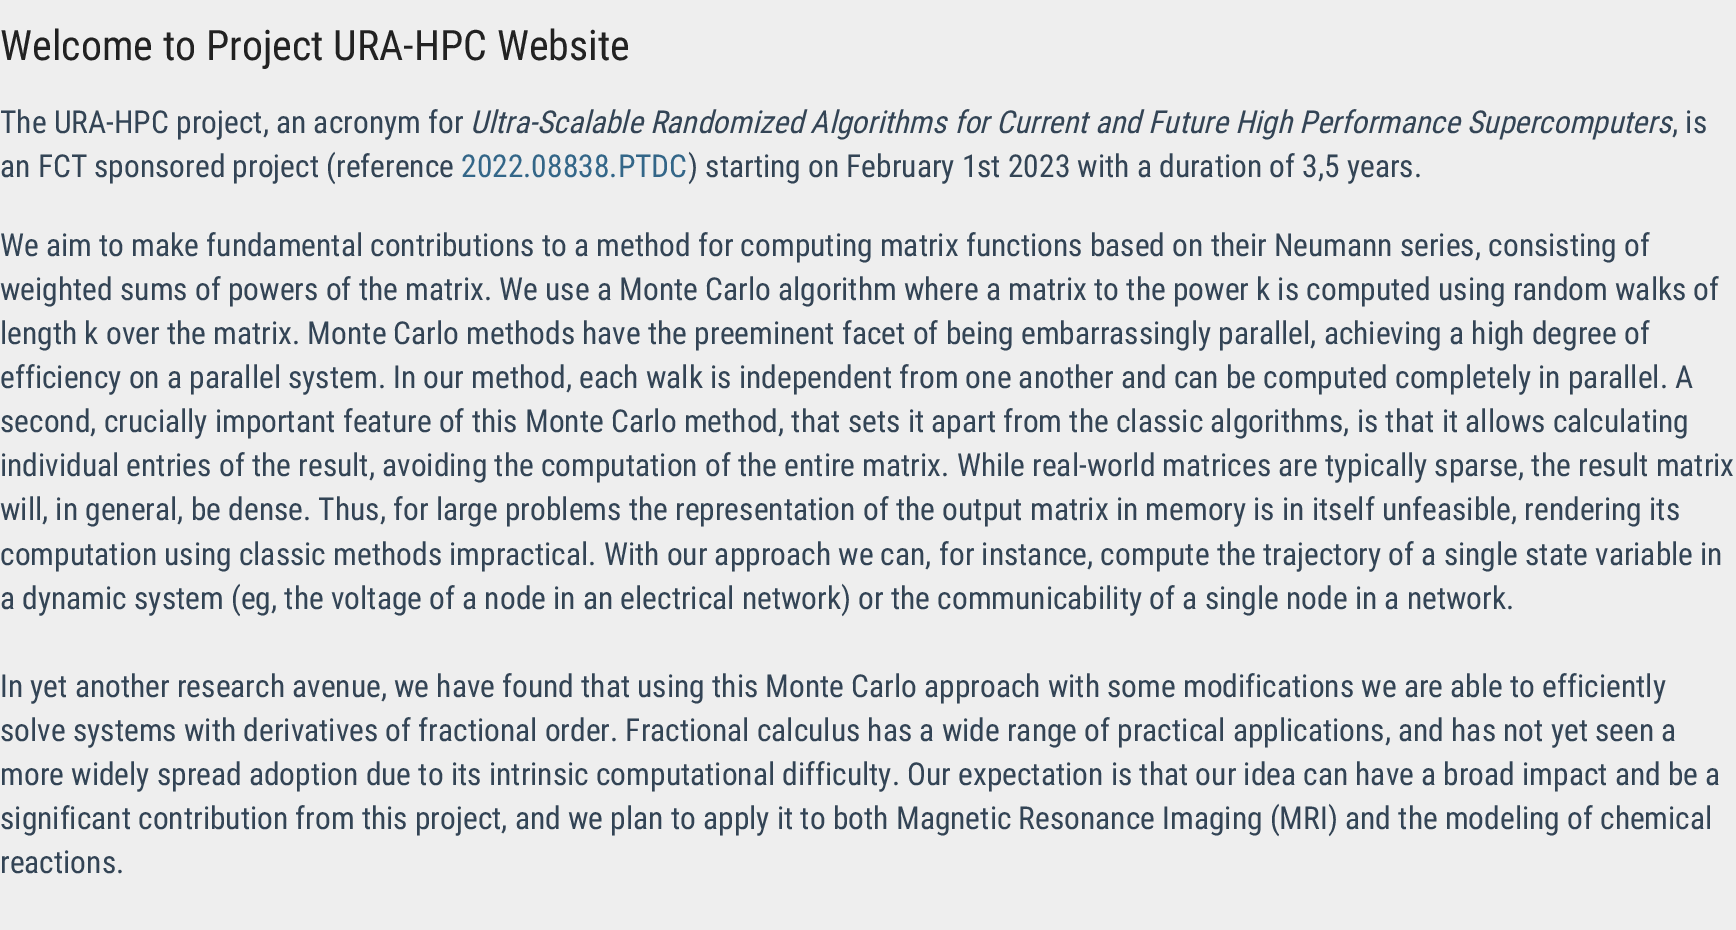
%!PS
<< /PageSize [1736 930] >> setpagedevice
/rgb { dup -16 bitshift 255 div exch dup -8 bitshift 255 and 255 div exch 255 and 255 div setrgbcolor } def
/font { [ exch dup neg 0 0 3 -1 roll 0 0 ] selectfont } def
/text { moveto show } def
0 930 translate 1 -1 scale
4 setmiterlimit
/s1 { /RobotoCondensed-Regular 42 font 16#222222 rgb } def
/s2 { /RobotoCondensed-Regular 31.5 font 16#334455 rgb } def
/s3 { /RobotoCondensed-Italic 31.5 font 16#334455 rgb } def
/s4 { /RobotoCondensed-Regular 31.5 font 16#336688 rgb } def
16#EEEEEE rgb
0 0 1736 930 rectfill
s1
(Welcome to Project URA-HPC Website) 0 60 text
s2
(The URA-HPC project, an acronym for) 0 133 text
s3
(Ultra-Scalable Randomized Algorithms for Current and Future High Performance Supercomputers) 470 133 text
s2
(, is) 1672 133 text
(an FCT sponsored project \(reference) 0 177 text
s4
(2022.08838.PTDC) 461 177 text
s2
(\) starting on February 1st 2023 with a duration of 3,5 years.) 688 177 text
(We aim to make fundamental contributions to a method for computing matrix functions based on their Neumann series, consisting of) 0 256 text
(weighted sums of powers of the matrix. We use a Monte Carlo algorithm where a matrix to the power k is computed using random walks of) 0 300 text
(length k over the matrix. Monte Carlo methods have the preeminent facet of being embarrassingly parallel, achieving a high degree of) 0 344 text
(efficiency on a parallel system. In our method, each walk is independent from one another and can be computed completely in parallel. A) 0 388 text
(second, crucially important feature of this Monte Carlo method, that sets it apart from the classic algorithms, is that it allows calculating) 0 432 text
(individual entries of the result, avoiding the computation of the entire matrix. While real-world matrices are typically sparse, the result matrix) 0 476 text
(will, in general, be dense. Thus, for large problems the representation of the output matrix in memory is in itself unfeasible, rendering its) 0 520 text
(computation using classic methods impractical. With our approach we can, for instance, compute the trajectory of a single state variable in) 0 565 text
(a dynamic system \(eg, the voltage of a node in an electrical network\) or the communicability of a single node in a network.) 0 609 text
(In yet another research avenue, we have found that using this Monte Carlo approach with some modifications we are able to efficiently) 0 697 text
(solve systems with derivatives of fractional order. Fractional calculus has a wide range of practical applications, and has not yet seen a) 0 741 text
(more widely spread adoption due to its intrinsic computational difficulty. Our expectation is that our idea can have a broad impact and be a) 0 785 text
(significant contribution from this project, and we plan to apply it to both Magnetic Resonance Imaging \(MRI\) and the modeling of chemical) 0 829 text
(reactions.) 0 873 text
showpage
